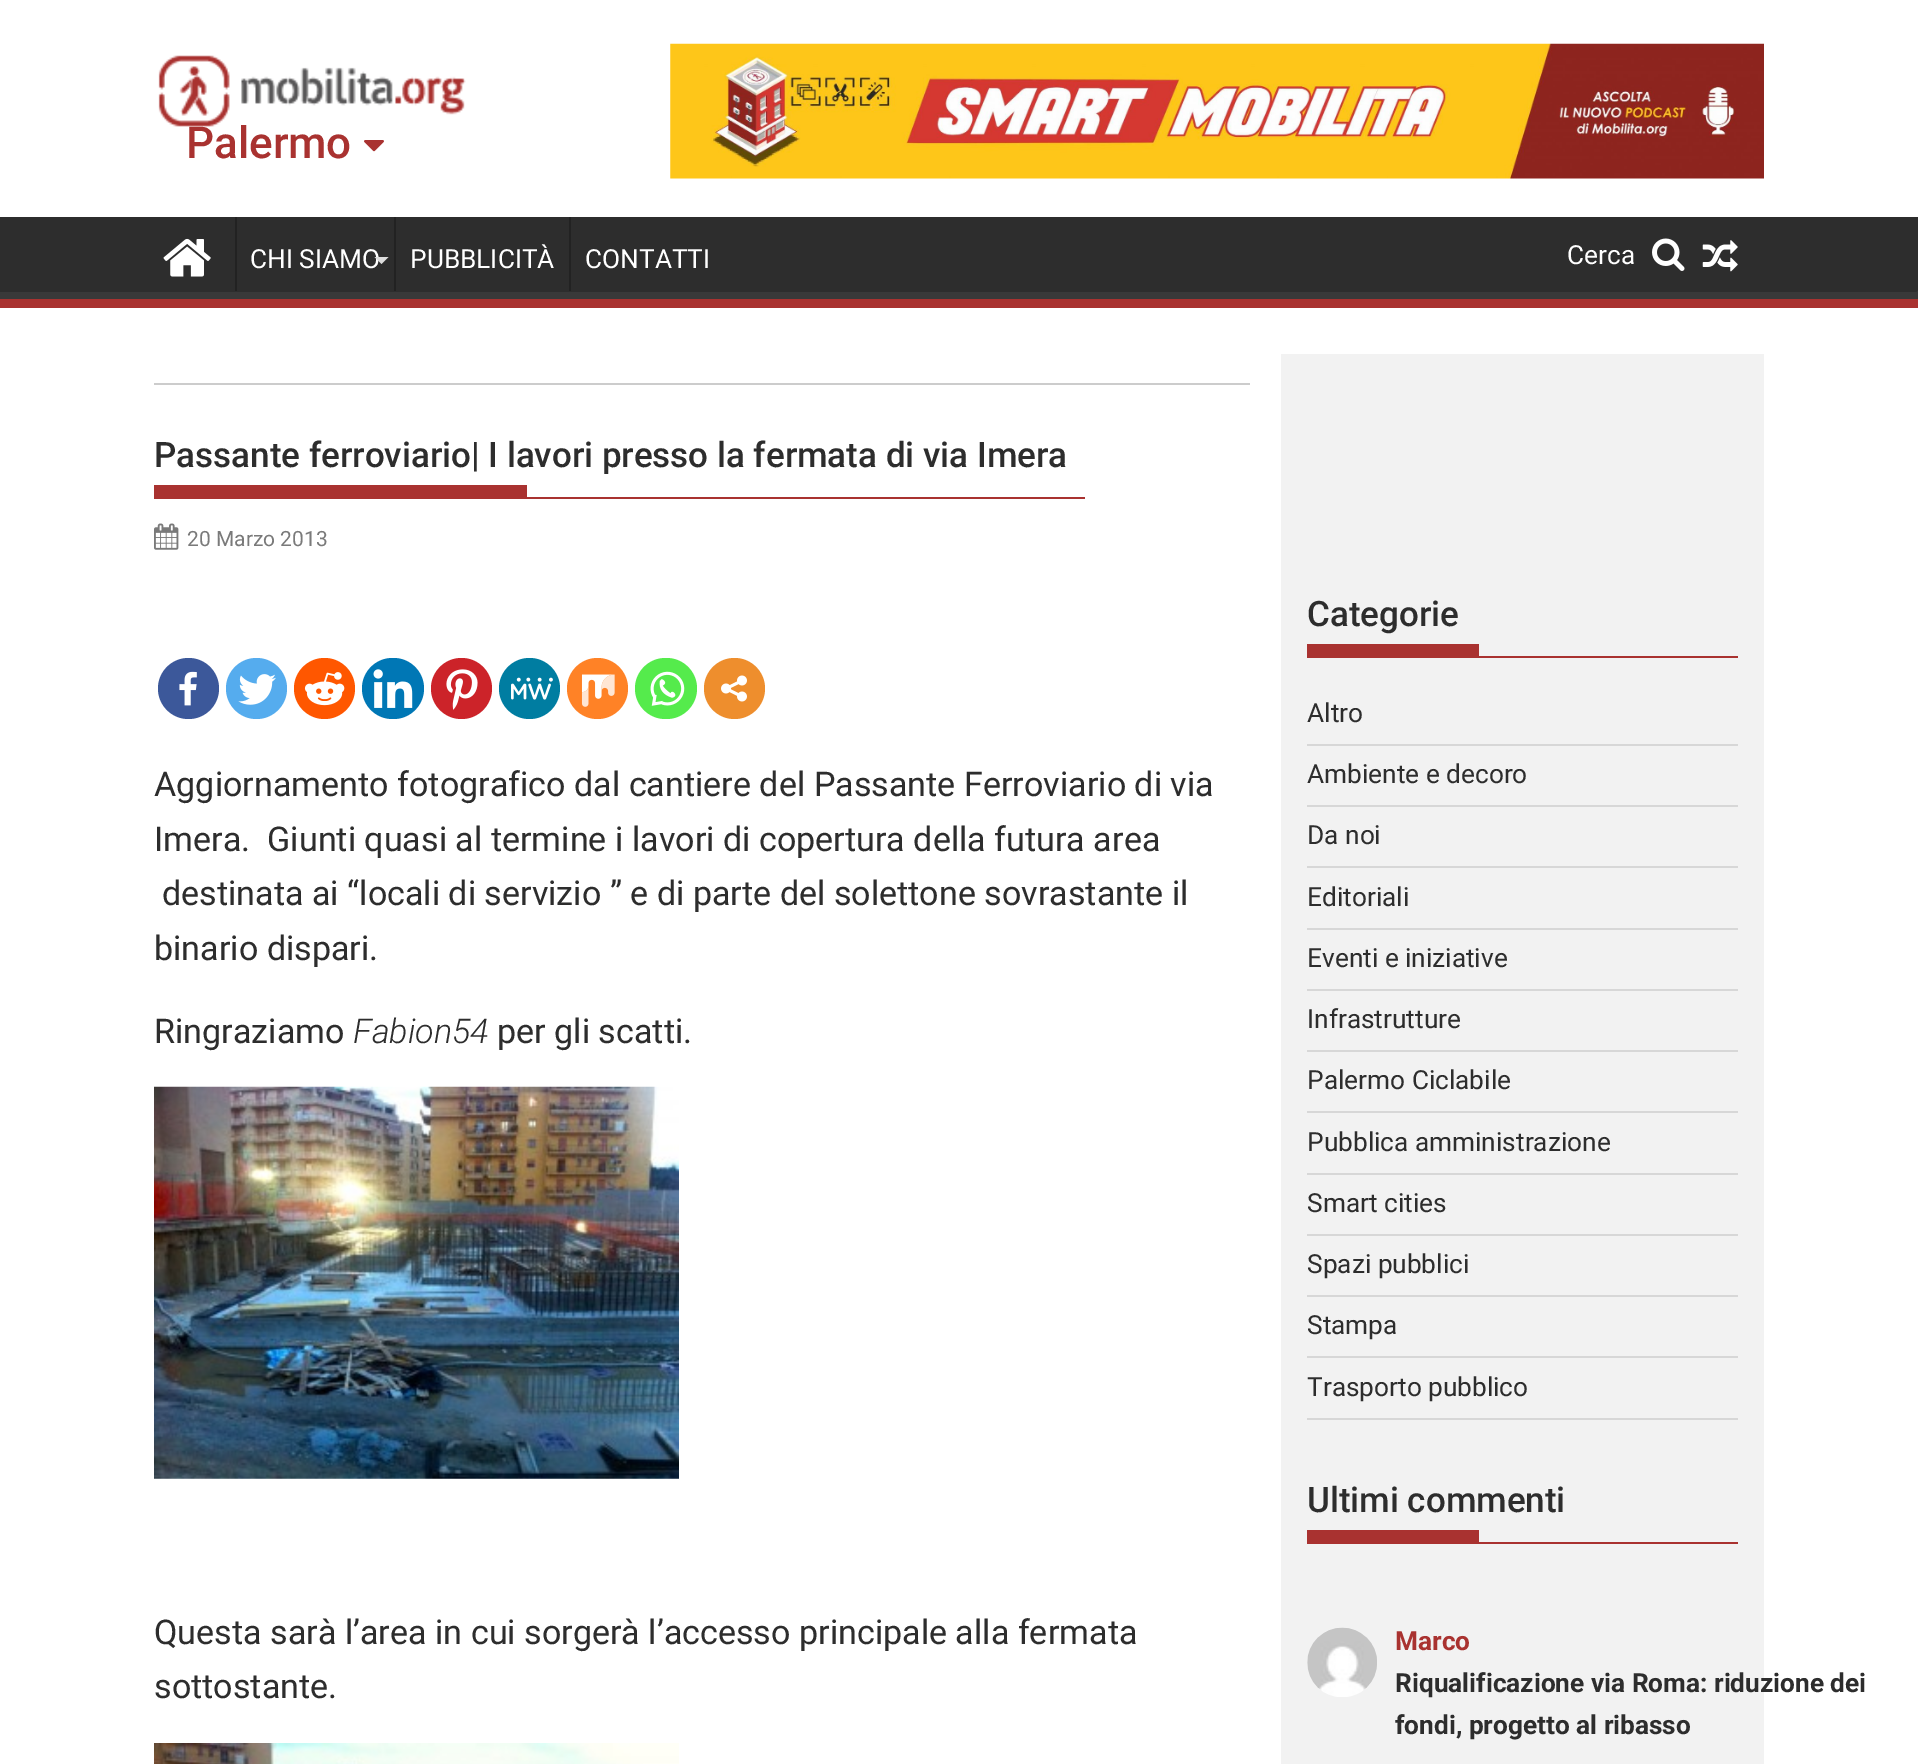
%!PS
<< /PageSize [1918 1764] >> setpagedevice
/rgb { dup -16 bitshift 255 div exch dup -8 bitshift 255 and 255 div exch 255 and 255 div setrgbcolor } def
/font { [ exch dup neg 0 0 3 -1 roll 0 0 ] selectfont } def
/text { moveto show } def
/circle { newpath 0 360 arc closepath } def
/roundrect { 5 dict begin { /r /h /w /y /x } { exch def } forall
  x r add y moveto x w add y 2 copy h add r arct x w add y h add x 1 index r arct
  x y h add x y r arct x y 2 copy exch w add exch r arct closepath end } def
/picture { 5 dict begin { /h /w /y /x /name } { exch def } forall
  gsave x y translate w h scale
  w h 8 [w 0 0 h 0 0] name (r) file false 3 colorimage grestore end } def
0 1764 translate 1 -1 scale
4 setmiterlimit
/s1 { /Roboto-Medium 44 font 16#A93230 rgb } def
/s2 { /Roboto-Regular 26.25 font 16#FFFFFF rgb } def
/s3 { /Roboto-Medium 35 font 16#2D2D2D rgb } def
/s4 { /Roboto-Regular 21 font 16#7A7A7A rgb } def
/s5 { /Roboto-Regular 34.1 font 16#2D2D2D rgb } def
/s6 { /Roboto-LightItalic 34.1 font 16#2D2D2D rgb } def
/s7 { /Roboto-Regular 26.25 font 16#2D2D2D rgb } def
/s8 { /Roboto-Bold 26.25 font 16#A93230 rgb } def
/s9 { /Roboto-Bold 26.25 font 16#2D2D2D rgb } def
16#FFFFFF rgb
0 0 1918 1764 rectfill
(pic1.raw) 158 55 308 72 picture
s1
(Palermo) 186 158 text
(pic2.raw) 364 140 20 12 picture
(pic3.raw) 670 43 1094 136 picture
16#2D2D2D rgb
0 217 1918 75 rectfill
gsave
0 217 1918 82 rectclip
16#393939 rgb
-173 44 moveto 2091 44 lineto 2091 472 lineto -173 472 lineto closepath -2 206 moveto 1916 206 lineto 1917 206 1918 207 1918 208 curveto 1918 290 lineto 1918 291 1917 292 1916 292 curveto -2 292 lineto -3 292 -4 291 -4 290 curveto -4 208 lineto -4 207 -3 206 -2 206 curveto closepath eofill
grestore
16#A93230 rgb
0 299 1918 9 rectfill
(pic4.raw) 163 238 48 39 picture
16#222222 rgb
235 217 2 74 rectfill
s2
(CHI SIAMO) 250 268 text
16#DDDDDD rgb
374.5 257 moveto 388.5 257 lineto 381.5 264 lineto closepath fill
16#222222 rgb
394 217 2 74 rectfill
s2
(PUBBLICITÀ) 410 268 text
16#222222 rgb
569 217 2 74 rectfill
s2
(CONTATTI) 585 268 text
(Cerca) 1567 264 text
(pic5.raw) 1652 238 33 33 picture
(pic6.raw) 1702 240 36 32 picture
16#CCCCCC rgb
154 383 1096 2 rectfill
16#A93230 rgb
154 497 931 2 rectfill
s3
(Passante ferroviario| I lavori presso la fermata di via Imera) 154 467 text
16#A93230 rgb
154 485 373 12 rectfill
(pic7.raw) 154 523 25 27 picture
s4
(20 Marzo 2013) 187 546 text
16#3C589A rgb
188.5 688.5 30.5 circle fill
(pic8.raw) 179 671 18 35 picture
16#55ACEE rgb
256.5 688.5 30.5 circle fill
(pic9.raw) 238 674 38 31 picture
16#FF5700 rgb
324.5 688.5 30.5 circle fill
(pic10.raw) 304 672 41 34 picture
16#0077B5 rgb
362 658 62 61 30.5 roundrect fill
(pic11.raw) 373 669 40 39 picture
16#CC2329 rgb
461.5 688.5 30.5 circle fill
(pic12.raw) 446 669 32 41 picture
16#007DA1 rgb
529.5 688.5 30.5 circle fill
(pic13.raw) 511 677 42 23 picture
16#FF8226 rgb
597.5 688.5 30.5 circle fill
(pic14.raw) 581 674 34 33 picture
16#55EB4C rgb
635 658 62 61 30.5 roundrect fill
(pic15.raw) 650 671 35 35 picture
16#EE8E2D rgb
734.5 688.5 30.5 circle fill
(pic16.raw) 721 675 26 27 picture
s5
(Aggiornamento fotografico dal cantiere del Passante Ferroviario di via) 154 796 text
(Imera.  Giunti quasi al termine i lavori di copertura della futura area) 154 851 text
(destinata ai “locali di servizio ” e di parte del solettone sovrastante il) 162 905 text
(binario dispari.) 154 960 text
(Ringraziamo) 154 1043 text
s6
(Fabion54) 353 1043 text
s5
(per gli scatti.) 497 1043 text
(pic17.raw) 154 1086 525 393 picture
(Questa sarà l’area in cui sorgerà l’accesso principale alla fermata) 154 1644 text
(sottostante.) 154 1698 text
(pic18.raw) 154 1743 525 21 picture
16#F2F2F2 rgb
1281 354 483 1410 rectfill
16#A93230 rgb
1307 656 431 2 rectfill
s3
(Categorie) 1307 626 text
16#A93230 rgb
1307 644 172 12 rectfill
16#D7D7D7 rgb
1307 744 431 2 rectfill
s7
(Altro) 1307 722 text
16#D7D7D7 rgb
1307 805 431 2 rectfill
s7
(Ambiente e decoro) 1307 783 text
16#D7D7D7 rgb
1307 866 431 2 rectfill
s7
(Da noi) 1307 844 text
16#D7D7D7 rgb
1307 928 431 2 rectfill
s7
(Editoriali) 1307 906 text
16#D7D7D7 rgb
1307 989 431 2 rectfill
s7
(Eventi e iniziative) 1307 967 text
16#D7D7D7 rgb
1307 1050 431 2 rectfill
s7
(Infrastrutture) 1307 1028 text
16#D7D7D7 rgb
1307 1111 431 2 rectfill
s7
(Palermo Ciclabile) 1307 1089 text
16#D7D7D7 rgb
1307 1173 431 2 rectfill
s7
(Pubblica amministrazione) 1307 1151 text
16#D7D7D7 rgb
1307 1234 431 2 rectfill
s7
(Smart cities) 1307 1212 text
16#D7D7D7 rgb
1307 1295 431 2 rectfill
s7
(Spazi pubblici) 1307 1273 text
16#D7D7D7 rgb
1307 1356 431 2 rectfill
s7
(Stampa) 1307 1334 text
16#D7D7D7 rgb
1307 1418 431 2 rectfill
s7
(Trasporto pubblico) 1307 1396 text
16#A93230 rgb
1307 1542 431 2 rectfill
s3
(Ultimi commenti) 1307 1512 text
16#A93230 rgb
1307 1530 172 12 rectfill
(pic19.raw) 1307 1627 70 70 picture
s8
(Marco) 1395 1650 text
s9
(Riqualificazione via Roma: riduzione dei) 1395 1692 text
(fondi, progetto al ribasso) 1395 1734 text
showpage
